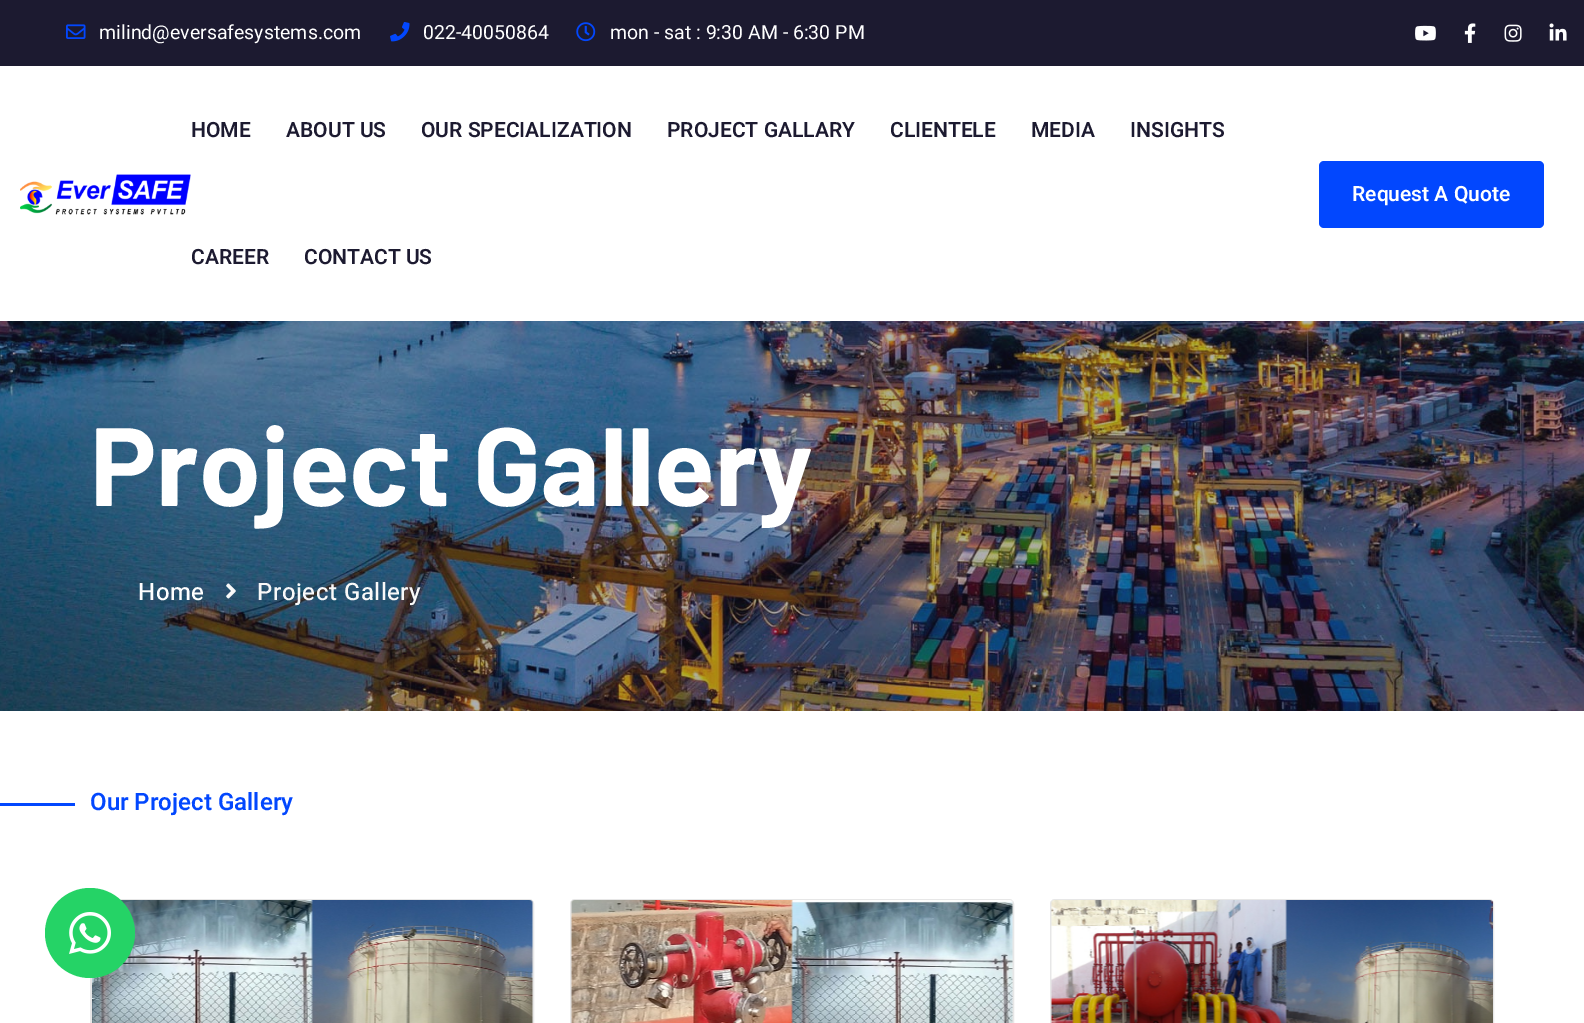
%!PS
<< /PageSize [1584 1023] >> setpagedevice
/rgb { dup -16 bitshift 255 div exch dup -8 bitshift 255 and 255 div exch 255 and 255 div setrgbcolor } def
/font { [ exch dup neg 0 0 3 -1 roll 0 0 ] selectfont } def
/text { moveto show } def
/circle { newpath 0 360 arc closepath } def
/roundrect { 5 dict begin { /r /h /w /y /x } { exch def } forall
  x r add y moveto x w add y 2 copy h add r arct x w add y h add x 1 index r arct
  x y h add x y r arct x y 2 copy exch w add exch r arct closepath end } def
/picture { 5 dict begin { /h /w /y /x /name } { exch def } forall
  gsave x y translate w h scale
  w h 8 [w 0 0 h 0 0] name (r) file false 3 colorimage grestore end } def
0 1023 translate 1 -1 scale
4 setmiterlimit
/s1 { /Heebo-Regular 19.5 font 16#FFFFFF rgb } def
/s2 { /Heebo-SemiBold 21 font 16#1C1A30 rgb } def
/s3 { /Heebo-SemiBold 21 font 16#FFFFFF rgb } def
/s4 { /Barlow-Bold 111 font 16#FFFFFF rgb } def
/s5 { /Heebo-SemiBold 24 font 16#0247FE rgb } def
16#FFFFFF rgb
0 0 1584 1023 rectfill
16#1C1A30 rgb
0 0 1584 66 rectfill
(pic1.raw) 66 24 20 15 picture
s1
(milind@eversafesystems.com) 99 39 text
(pic2.raw) 390 22 20 20 picture
(022-40050864) 423 39 text
(pic3.raw) 576 22 20 20 picture
(mon - sat : 9:30 AM - 6:30 PM) 610 39 text
(pic4.raw) 1415 25 21 16 picture
(pic5.raw) 1464 23 12 20 picture
(pic6.raw) 1504 24 18 18 picture
(pic7.raw) 1549 23 18 18 picture
(pic8.raw) 20 174 171 41 picture
s2
(HOME) 191 137 text
(ABOUT US) 286 137 text
(OUR SPECIALIZATION) 421 137 text
(PROJECT GALLARY) 667 137 text
(CLIENTELE) 890 137 text
(MEDIA) 1031 137 text
(INSIGHTS) 1130 137 text
(CAREER) 191 264 text
(CONTACT US) 304 264 text
16#0247FE rgb
1319 161 225 67 5 roundrect fill
s3
(Request A Quote) 1352 201 text
(pic9.raw) 0 321 1584 390 picture
s4
(Project Gallery) 90 506 text
/Heebo-Medium 24 font
138 600 moveto 0.5 0 (Home) ashow
(pic10.raw) 226 583 10 16 picture
16#F9F9F9 rgb
257 600 moveto 0.5 0 (Project Gallery) ashow
16#0247FE rgb
0 803 75 3 rectfill
s5
(Our Project Gallery) 90 810 text
16#E7E7E7 rgb
2 setlinewidth
91 900 442 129 4 roundrect stroke
(pic11.raw) 92 900 441 123 picture
571 900 442 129 4 roundrect stroke
(pic12.raw) 571 900 442 123 picture
1051 900 442 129 4 roundrect stroke
(pic13.raw) 1051 900 442 123 picture
16#25D366 rgb
90 933 45 circle fill
(pic14.raw) 69 912 42 42 picture
showpage
